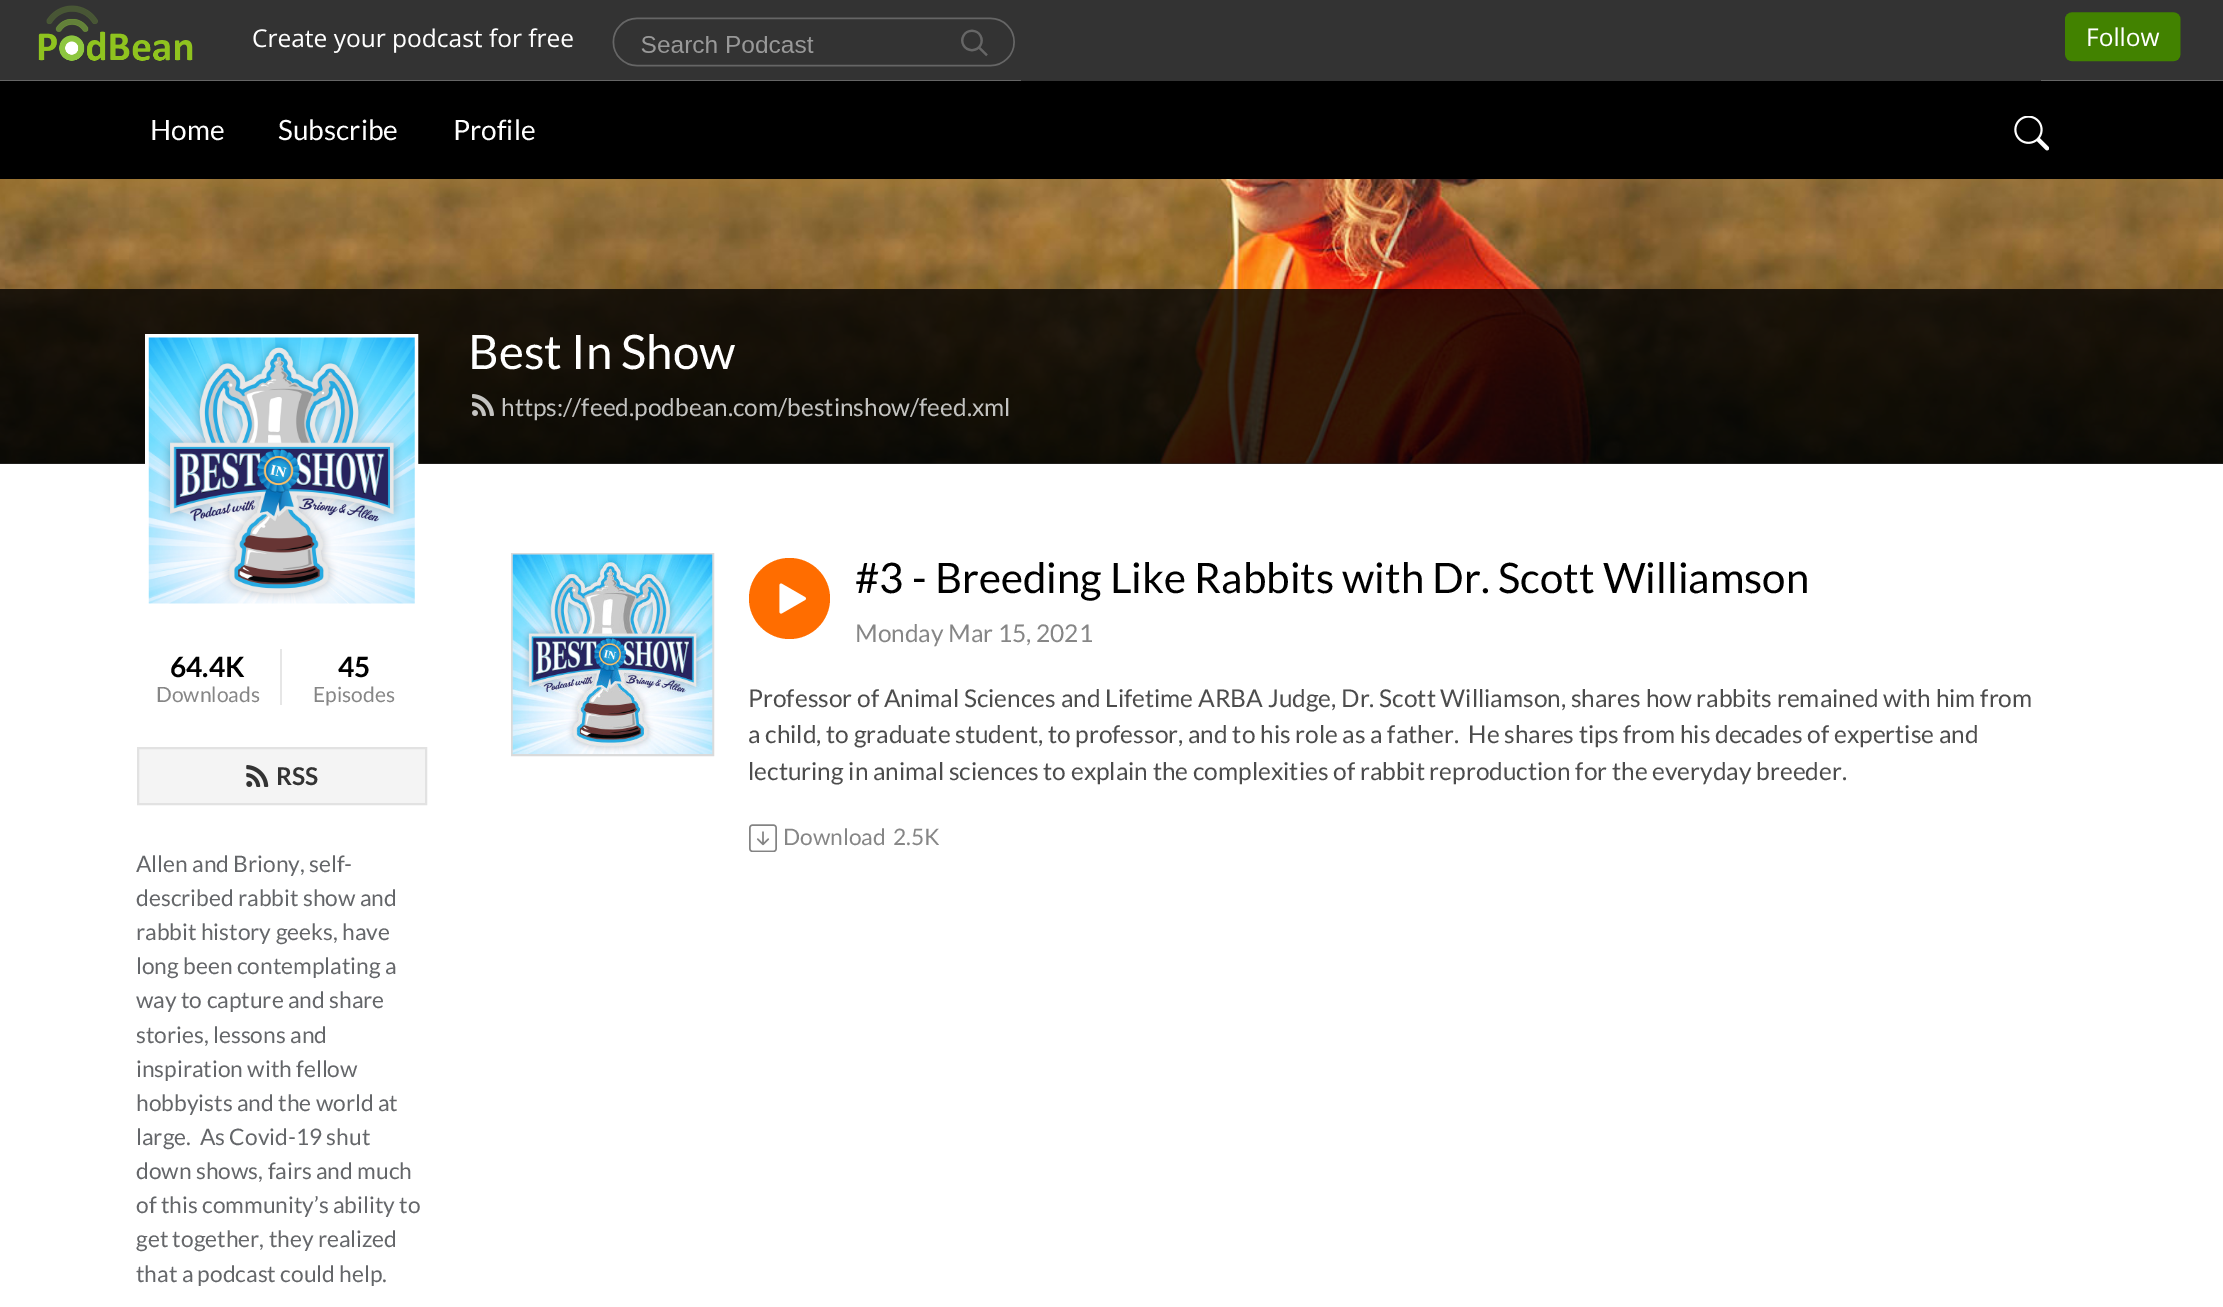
%!PS
<< /PageSize [2223 1307] /PageUsesTransparency true >> setpagedevice
/rgb { dup -16 bitshift 255 div exch dup -8 bitshift 255 and 255 div exch 255 and 255 div setrgbcolor } def
/font { [ exch dup neg 0 0 3 -1 roll 0 0 ] selectfont } def
/text { moveto show } def
/alpha { dup .setfillconstantalpha .setstrokeconstantalpha } def
/circle { newpath 0 360 arc closepath } def
/picture { 5 dict begin { /h /w /y /x /name } { exch def } forall
  gsave x y translate w h scale
  w h 8 [w 0 0 h 0 0] name (r) file false 3 colorimage grestore end } def
0 .pushpdf14devicefilter
0 1307 translate 1 -1 scale
4 setmiterlimit
/s1 { /Lato-Regular 28 font 16#FFFFFF rgb } def
/s2 { /Lato-Regular 47.5 font 16#FFFFFF rgb } def
/s3 { /Lato-Regular 24.5 font 16#C3C3C1 rgb } def
/s4 { /Lato-Bold 28 font 16#000000 rgb } def
/s5 { /Lato-Regular 21 font 16#868686 rgb } def
/s6 { /Lato-Bold 24.5 font 16#333333 rgb } def
/s7 { /Lato-Regular 22.75 font 16#646669 rgb } def
/s8 { /Lato-Regular 42 font 16#000000 rgb } def
/s9 { /Lato-Regular 24.5 font 16#868686 rgb } def
/s10 { /Lato-Regular 24.5 font 16#4C4C4C rgb } def
/s11 { /Lato-Regular 22.75 font 16#868686 rgb } def
16#FFFFFF rgb
0 0 2223 1307 rectfill
16#333333 rgb
0 0 2223 5 rectfill
(pic1.raw) 0 5 2223 76 picture
16#000000 rgb
0 81 2223 98 rectfill
s1
(Home) 150 140 text
(Subscribe) 278 140 text
(Profile) 453 140 text
(pic2.raw) 2014 116 35 35 picture
(pic3.raw) 0 179 2223 285 picture
0.8 alpha
16#000000 rgb
0 289 2223 175 rectfill
1 alpha
s2
(Best In Show) 468 369 text
(pic4.raw) 472 394 22 22 picture
s3
(https://feed.podbean.com/bestinshow/feed.xml) 501 416 text
16#FFFFFF rgb
4 setlinewidth
147 336 269 269 rectstroke
(pic5.raw) 148 337 267 267 picture
s4
(64.4K) 170 677 text
s5
(Downloads) 156 702 text
16#E6E6E6 rgb
280 649 2 56 rectfill
s4
(45) 338 677 text
s5
(Episodes) 313 702 text
16#F4F4F4 rgb
138 748 moveto 426 748 lineto 426 804 lineto 138 804 lineto closepath gsave fill grestore
16#E2E2E2 rgb
2 setlinewidth
stroke
(pic6.raw) 246 765 23 22 picture
s6
(RSS) 276 785 text
s7
(Allen and Briony, self-) 136 872 text
(described rabbit show and) 136 906 text
(rabbit history geeks, have) 136 940 text
(long been contemplating a) 136 974 text
(way to capture and share) 136 1008 text
(stories, lessons and) 136 1043 text
(inspiration with fellow) 136 1077 text
(hobbyists and the world at) 136 1111 text
(large.  As Covid-19 shut) 136 1145 text
(down shows, fairs and much) 136 1179 text
(of this community’s ability to) 136 1213 text
(get together, they realized) 136 1247 text
(that a podcast could help.) 136 1282 text
16#DADADA rgb
512 554 201 201 rectstroke
(pic7.raw) 512 554 201 200 picture
16#FF6D00 rgb
789.5 598.5 40.5 circle fill
(pic8.raw) 779 583 27 31 picture
s8
(#3 - Breeding Like Rabbits with Dr. Scott Williamson) 855 593 text
s9
(Monday Mar 15, 2021) 855 642 text
s10
(Professor of Animal Sciences and Lifetime ARBA Judge, Dr. Scott Williamson, shares how rabbits remained with him from) 748 707 text
(a child, to graduate student, to professor, and to his role as a father.) 748 743 text
(He shares tips from his decades of expertise and) 1468 743 text
(lecturing in animal sciences to explain the complexities of rabbit reproduction for the everyday breeder.) 748 780 text
(pic9.raw) 749 824 28 28 picture
s11
(Download) 783 845 text
(2.5K) 893 845 text
.poppdf14devicefilter showpage
